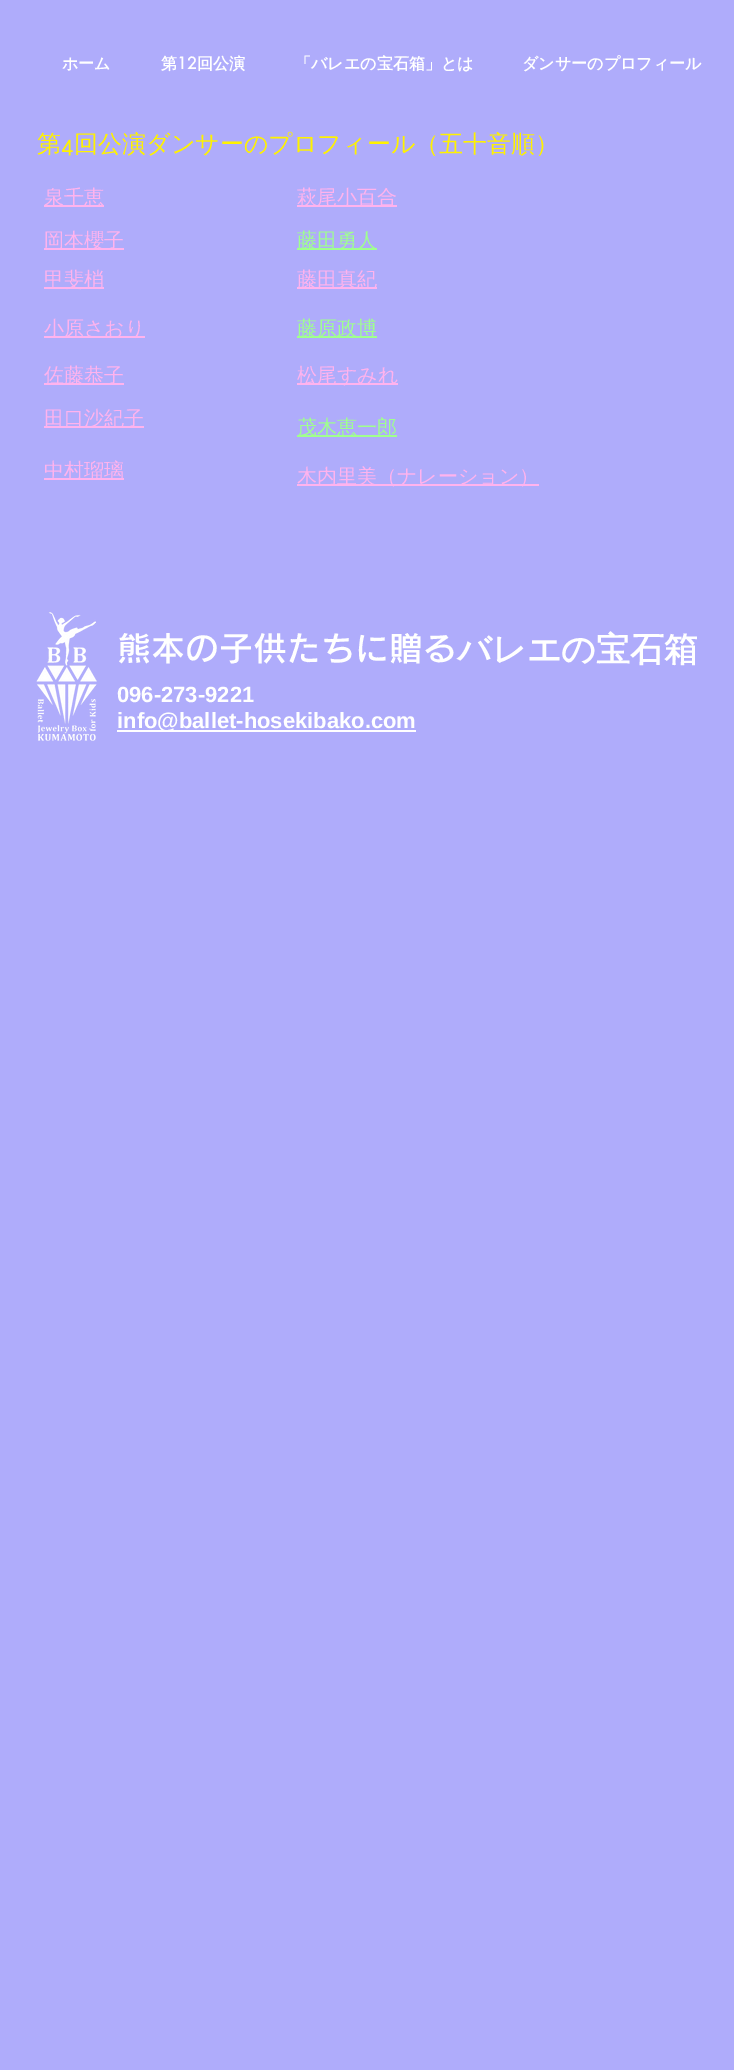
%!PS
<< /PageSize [734 2070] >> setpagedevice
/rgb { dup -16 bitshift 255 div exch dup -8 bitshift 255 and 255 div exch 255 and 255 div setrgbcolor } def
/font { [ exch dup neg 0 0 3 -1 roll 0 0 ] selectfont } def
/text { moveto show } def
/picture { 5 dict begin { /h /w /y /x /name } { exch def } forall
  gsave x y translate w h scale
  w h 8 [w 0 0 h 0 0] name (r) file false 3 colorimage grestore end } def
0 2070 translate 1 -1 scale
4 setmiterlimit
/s1 { /WenQuanYiZenHei-Bold 16 font 16#FFFFFF rgb } def
/s2 { /futura-Bold 16 font 16#FFFFFF rgb } def
/s3 { /WenQuanYiZenHei-Medium 24 font 16#FFF200 rgb } def
/s4 { /Syne-Regular 24 font 16#FFF200 rgb } def
/s5 { /WenQuanYiZenHei-Medium 20 font 16#FFB3EE rgb } def
/s6 { /WenQuanYiZenHei-Medium 20 font 16#A0FF8F rgb } def
/s7 { /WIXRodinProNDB-SemiBold 34 font 16#FFFFFF rgb } def
/s8 { /WenQuanYiZenHei-Bold 34 font 16#FFFFFF rgb } def
/s9 { /LiberationSans-Bold 22 font 16#FFFFFF rgb } def
16#AFACFB rgb
0 0 734 2070 rectfill
s1
(ホーム) 62 69 text
(第) 161 69 text
s2
(12) 177 69 text
s1
(回公演) 197 69 text
(「バレエの宝石箱」とは) 295 69 text
(ダンサーのプロフィール) 522 69 text
s3
(第) 37 152 text
s4
(4) 61 152 text
s3
(回公演ダンサーのプロフィール（五十音順）) 74 152 text
16#FFB3EE rgb
44 205 60 2 rectfill
s5
(泉千恵) 44 204 text
297 205 100 2 rectfill
(萩尾小百合) 297 204 text
44 248 80 2 rectfill
(岡本櫻子) 44 247 text
16#A0FF8F rgb
297 248 80 2 rectfill
(藤田勇人) 297 247 text
16#FFB3EE rgb
44 287 60 2 rectfill
(甲斐梢) 44 286 text
297 287 80 2 rectfill
(藤田真紀) 297 286 text
44 336 101 2 rectfill
(小原さおり) 44 335 text
16#A0FF8F rgb
297 336 80 2 rectfill
(藤原政博) 297 335 text
16#FFB3EE rgb
44 383 80 2 rectfill
(佐藤恭子) 44 382 text
297 383 101 2 rectfill
(松尾すみれ) 297 382 text
44 426 100 2 rectfill
(田口沙紀子) 44 425 text
16#A0FF8F rgb
297 435 100 2 rectfill
(茂木恵一郎) 297 434 text
16#FFB3EE rgb
44 478 80 2 rectfill
(中村瑠璃) 44 477 text
297 484 242 2 rectfill
(木内里美（ナレーション）) 297 483 text
(pic1.raw) 36 612 61 129 picture
s7
(熊本の子供たちに贈る) 117 661 text
s8
(バレエの宝石箱) 457 661 text
s9
(096-273-9221) 117 702 text
117 730 299 2 rectfill
(info@ballet-hosekibako.com) 117 728 text
showpage
